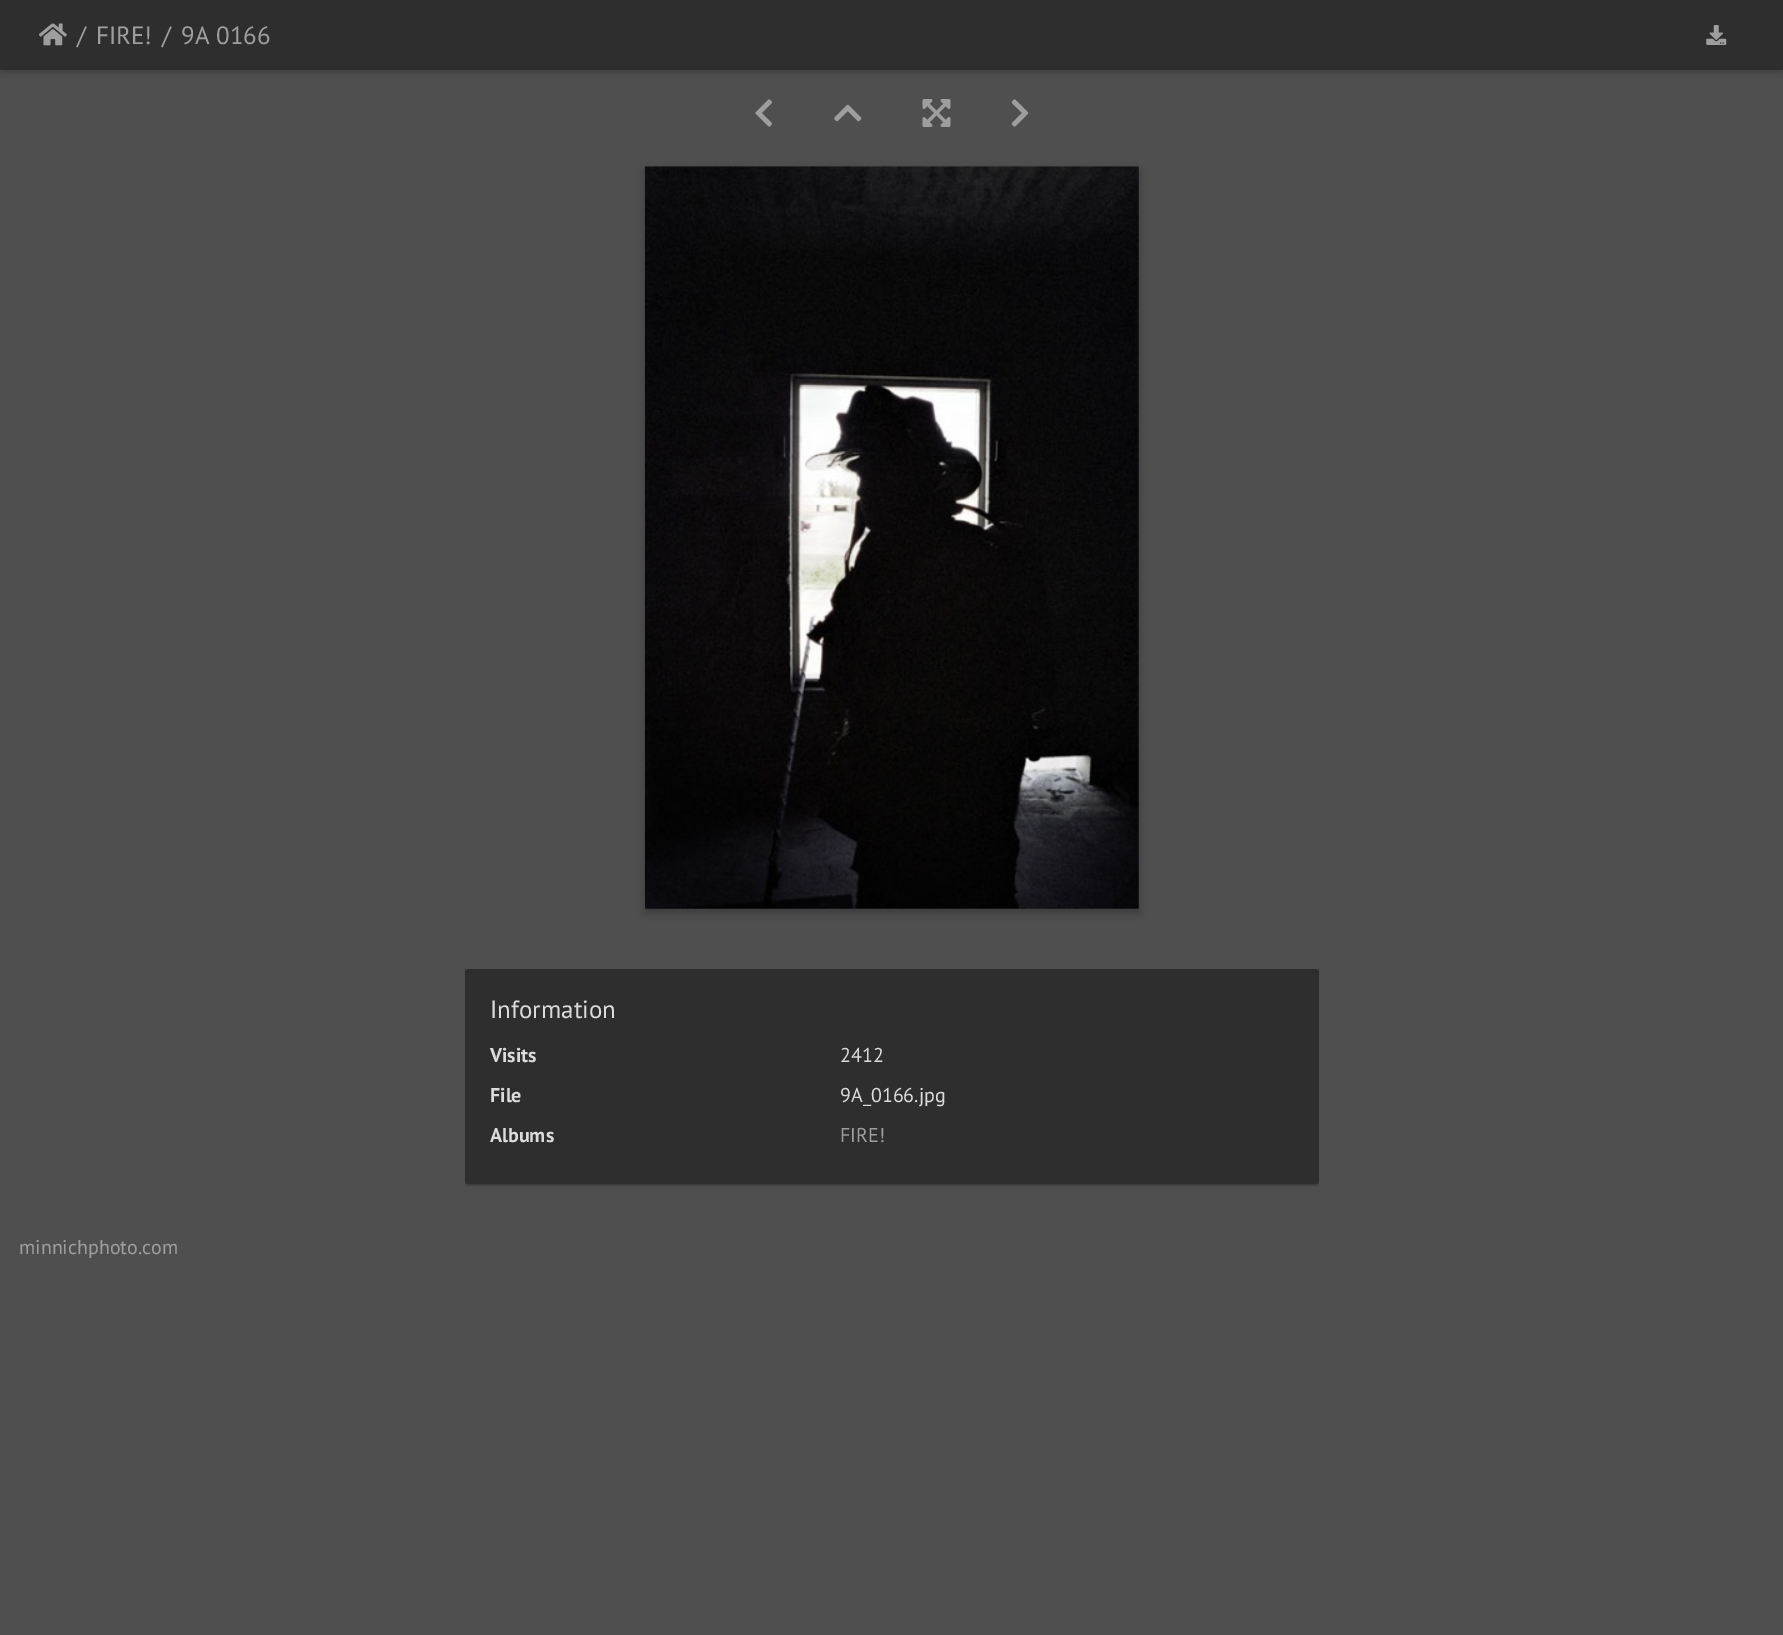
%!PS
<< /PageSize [1783 1635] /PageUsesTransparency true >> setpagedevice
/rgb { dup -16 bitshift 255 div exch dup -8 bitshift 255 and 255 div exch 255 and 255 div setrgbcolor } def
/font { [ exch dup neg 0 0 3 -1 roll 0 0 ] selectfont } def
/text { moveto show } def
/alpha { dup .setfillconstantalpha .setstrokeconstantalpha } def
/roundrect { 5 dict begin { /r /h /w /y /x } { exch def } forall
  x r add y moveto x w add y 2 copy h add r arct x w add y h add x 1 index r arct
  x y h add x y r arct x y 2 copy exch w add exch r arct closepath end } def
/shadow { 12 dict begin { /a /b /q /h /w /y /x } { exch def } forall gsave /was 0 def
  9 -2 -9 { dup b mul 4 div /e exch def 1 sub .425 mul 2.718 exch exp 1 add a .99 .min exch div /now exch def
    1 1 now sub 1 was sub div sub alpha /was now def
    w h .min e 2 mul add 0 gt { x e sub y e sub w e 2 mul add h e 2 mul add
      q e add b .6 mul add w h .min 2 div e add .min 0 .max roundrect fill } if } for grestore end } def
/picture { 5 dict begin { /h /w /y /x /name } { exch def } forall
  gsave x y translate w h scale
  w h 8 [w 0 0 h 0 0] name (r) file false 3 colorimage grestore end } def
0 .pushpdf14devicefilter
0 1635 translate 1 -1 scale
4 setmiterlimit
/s1 { /PTSans-Regular 25 font 16#9E9E9E rgb } def
/s2 { /PTSans-Regular 25 font 16#DBDBDB rgb } def
/s3 { /PTSans-Bold 20 font 16#DBDBDB rgb } def
/s4 { /PTSans-Regular 20 font 16#DBDBDB rgb } def
/s5 { /PTSans-Regular 20 font 16#9E9E9E rgb } def
16#4F4F4F rgb
0 0 1783 1635 rectfill
16#000000 rgb
1 5 1782 68 0 3 0.2 shadow
16#2E2E2E rgb
0 0 1783 70 rectfill
(pic1.raw) 39 23 28 23 picture
s1
(/) 77 44 text
(FIRE!) 96 44 text
(/) 162 44 text
(9A 0166) 181 44 text
(pic2.raw) 1706 25 21 20 picture
(pic3.raw) 755 99 17 28 picture
(pic4.raw) 834 104 28 18 picture
(pic5.raw) 922 99 29 28 picture
(pic6.raw) 1011 99 18 28 picture
gsave
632 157 moveto 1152 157 lineto 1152 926 lineto 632 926 lineto closepath 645 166 moveto 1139 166 lineto 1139 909 lineto 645 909 lineto closepath eoclip newpath
16#000000 rgb
645 170 494 743 0 4 0.23 shadow
grestore
(pic7.raw) 645 166 494 743 picture
16#000000 rgb
468 975 848 210 0 0.5 0.2 shadow
465 971 854 215 2.5 1 0.14 shadow
16#2E2E2E rgb
465 969 854 215 2.5 roundrect fill
s2
(Information) 490 1018 text
s3
(Visits) 490 1062 text
s4
(2412) 840 1062 text
s3
(File) 490 1102 text
s4
(9A_0166.jpg) 840 1102 text
s3
(Albums) 490 1142 text
s5
(FIRE!) 840 1142 text
(minnichphoto.com) 19 1254 text
.poppdf14devicefilter showpage
